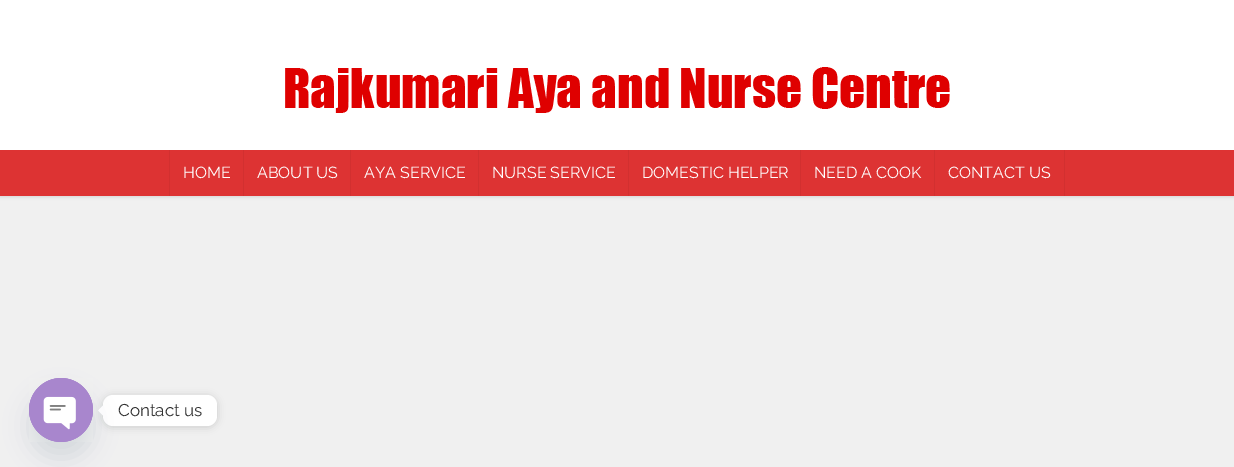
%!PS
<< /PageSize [1234 467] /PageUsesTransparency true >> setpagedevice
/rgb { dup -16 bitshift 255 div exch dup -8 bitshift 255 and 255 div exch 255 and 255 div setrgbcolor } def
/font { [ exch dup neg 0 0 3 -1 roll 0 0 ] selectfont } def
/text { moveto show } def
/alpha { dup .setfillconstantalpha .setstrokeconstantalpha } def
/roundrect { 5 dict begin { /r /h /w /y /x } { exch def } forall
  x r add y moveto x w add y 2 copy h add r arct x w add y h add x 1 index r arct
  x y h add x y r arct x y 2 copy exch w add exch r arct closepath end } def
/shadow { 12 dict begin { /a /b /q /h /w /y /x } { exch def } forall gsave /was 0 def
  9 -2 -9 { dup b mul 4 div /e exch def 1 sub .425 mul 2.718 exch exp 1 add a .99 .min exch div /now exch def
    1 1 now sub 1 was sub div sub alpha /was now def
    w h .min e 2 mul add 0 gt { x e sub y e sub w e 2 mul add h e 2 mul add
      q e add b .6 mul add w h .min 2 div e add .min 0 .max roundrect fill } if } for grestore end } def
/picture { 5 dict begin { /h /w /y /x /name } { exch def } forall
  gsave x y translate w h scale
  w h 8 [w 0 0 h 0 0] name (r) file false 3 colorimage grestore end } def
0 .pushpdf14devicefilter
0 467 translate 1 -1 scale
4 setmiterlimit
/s1 { /Raleway-Thin 16 font 16#FFFFFF rgb } def
/s2 { /Raleway-Thin 17 font 16#333333 rgb } def
16#F0F0F0 rgb
0 0 1234 467 rectfill
16#000000 rgb
0 1 1234 196 0 1.5 0.1 shadow
16#FFFFFF rgb
0 0 1234 150 rectfill
(pic1.raw) 285 67 665 46 picture
16#DD3333 rgb
0 150 1234 46 rectfill
16#D23030 rgb
169 150 1 46 rectfill
s1
(HOME) 183 178 text
16#D23030 rgb
243 150 1 46 rectfill
s1
(ABOUT US) 257 178 text
16#D23030 rgb
350 150 1 46 rectfill
s1
(AYA SERVICE) 364 178 text
16#D23030 rgb
478 150 1 46 rectfill
s1
(NURSE SERVICE) 492 178 text
16#D23030 rgb
628 150 1 46 rectfill
s1
(DOMESTIC HELPER) 642 178 text
16#D23030 rgb
800 150 1 46 rectfill
s1
(NEED A COOK) 814 178 text
16#D23030 rgb
1064 150 1 46 rectfill
934 150 1 46 rectfill
s1
(CONTACT US) 948 178 text
16#000000 rgb
103 396 114 31 10 4 0.15 shadow
16#FFFFFF rgb
103 395 114 31 10 roundrect fill
103 405.5 moveto 103 415.5 lineto 98 410.5 lineto closepath fill
16#49687E rgb
29 394 64 64 32 12 0.16 shadow
(pic2.raw) 29 378 64 64 picture
s2
(Contact us) 118 416 text
.poppdf14devicefilter showpage
